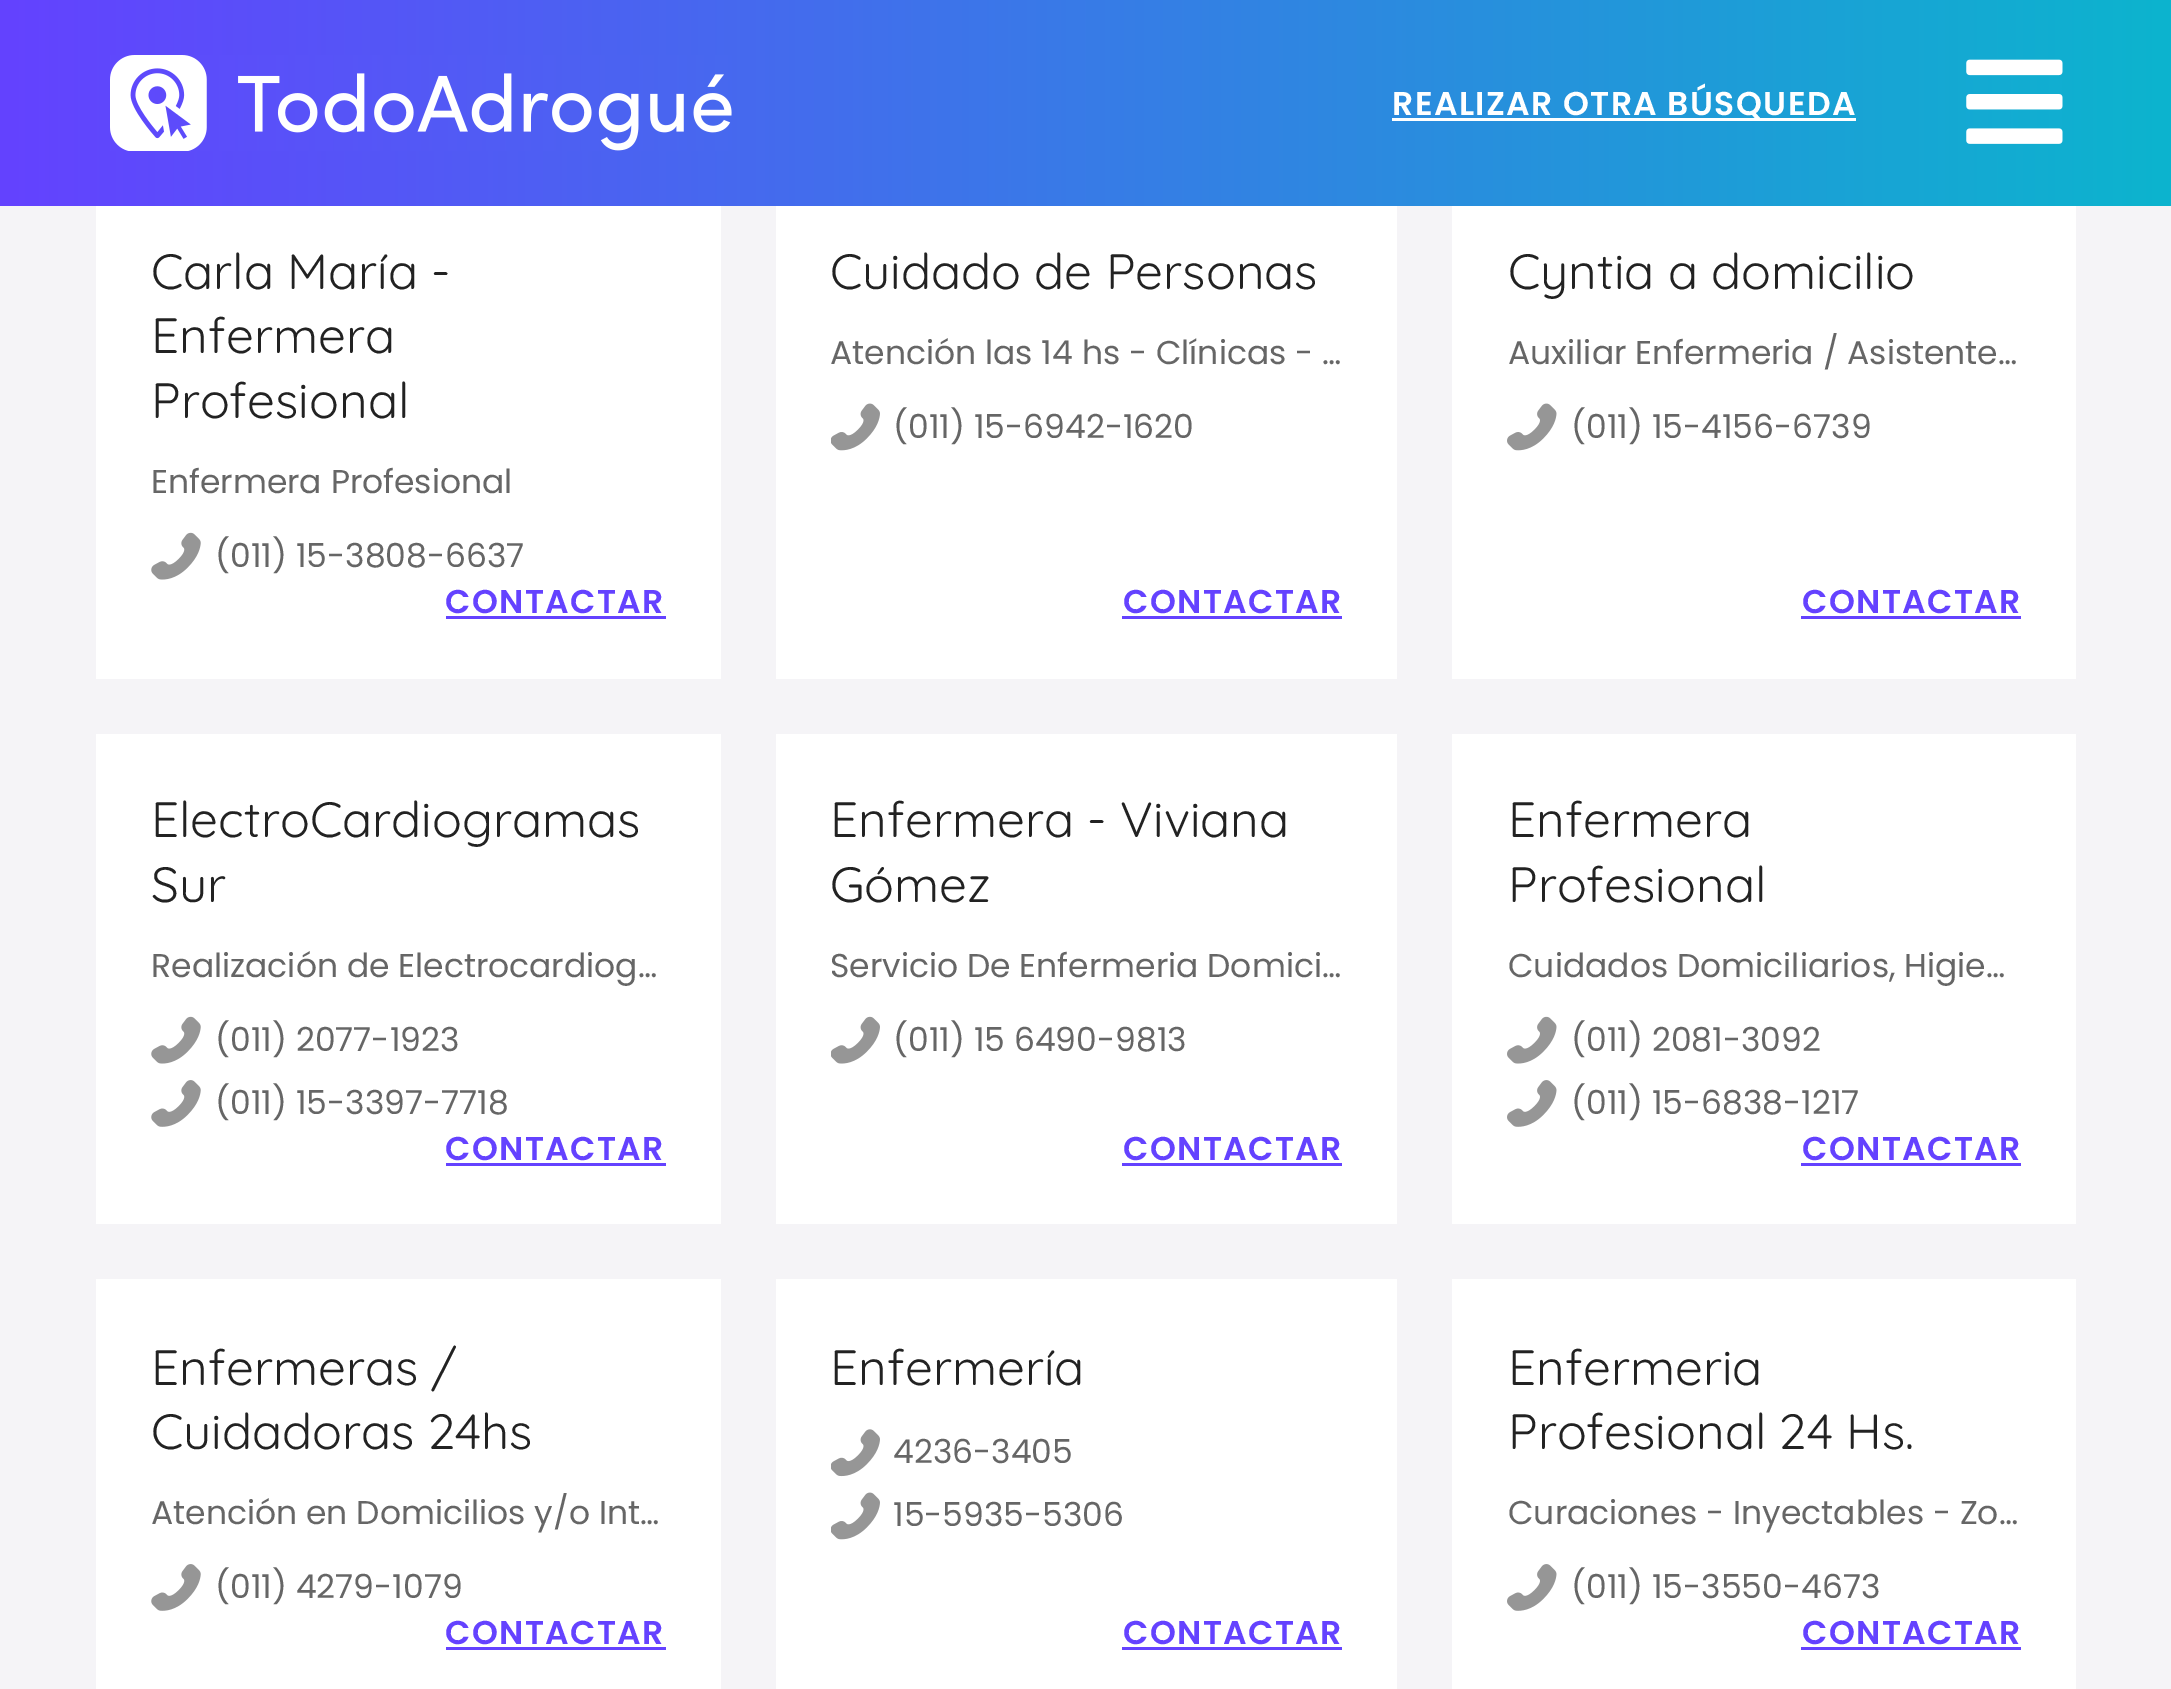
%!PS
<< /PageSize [2171 1689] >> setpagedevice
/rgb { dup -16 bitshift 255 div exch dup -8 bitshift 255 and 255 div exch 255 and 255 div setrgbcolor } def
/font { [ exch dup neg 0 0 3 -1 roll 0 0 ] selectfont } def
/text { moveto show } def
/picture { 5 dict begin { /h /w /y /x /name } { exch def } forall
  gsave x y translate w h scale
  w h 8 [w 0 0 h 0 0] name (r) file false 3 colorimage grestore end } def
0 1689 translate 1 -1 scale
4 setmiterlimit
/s1 { /Quicksand-Regular 49.5 font 16#222222 rgb } def
/s2 { /Poppins-Regular 33 font 16#666666 rgb } def
16#F5F4F7 rgb
0 0 2171 1689 rectfill
gsave 0 0 moveto 2171 0 lineto 2171 206 lineto 0 206 lineto closepath clip newpath
<< /ShadingType 2 /ColorSpace /DeviceRGB /Coords [0 103 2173 103] /Extend [true true] /Function << /FunctionType 2 /Domain [0 1] /C0 [0.392 0.259 1] /C1 [0.047 0.706 0.808] /N 1 >> >> shfill grestore
(pic1.raw) 110 55 622 96 picture
16#FFFFFF rgb
1392 118 464 3 rectfill
/Poppins-SemiBold 33 font
1392 115 moveto 1.4 0 (REALIZAR OTRA BÚSQUEDA) ashow
(pic2.raw) 1966 59 97 85 picture
96 206 625 473 rectfill
s1
(Carla María -) 151 289 text
(Enfermera) 151 353 text
(Profesional) 151 418 text
s2
(Enfermera Profesional) 151 493 text
(pic3.raw) 151 532 50 48 picture
(\(011\) 15-3808-6637) 215 567 text
/Poppins-SemiBold 33 font
16#6442FF rgb
445 613 moveto 1.4 0 (CONTACTAR) ashow
446 616 220 3 rectfill
16#FFFFFF rgb
776 206 621 473 rectfill
s1
(Cuidado de Personas) 830 289 text
s2
(Atención las 14 hs - Clínicas - …) 830 364 text
(pic4.raw) 831 403 49 48 picture
(\(011\) 15-6942-1620) 893 438 text
/Poppins-SemiBold 33 font
16#6442FF rgb
1123 613 moveto 1.4 0 (CONTACTAR) ashow
1122 616 220 3 rectfill
16#FFFFFF rgb
1452 206 624 473 rectfill
s1
(Cyntia a domicilio) 1508 289 text
s2
(Auxiliar Enfermeria / Asistente…) 1508 364 text
(pic5.raw) 1507 403 50 48 picture
(\(011\) 15-4156-6739) 1571 438 text
/Poppins-SemiBold 33 font
16#6442FF rgb
1802 613 moveto 1.4 0 (CONTACTAR) ashow
1801 616 220 3 rectfill
16#FFFFFF rgb
96 734 625 490 rectfill
s1
(ElectroCardiogramas) 151 837 text
(Sur) 151 902 text
s2
(Realización de Electrocardiog…) 151 977 text
(pic3.raw) 151 1016 50 48 picture
(\(011\) 2077-1923) 215 1051 text
(pic6.raw) 151 1080 50 47 picture
(\(011\) 15-3397-7718) 215 1114 text
/Poppins-SemiBold 33 font
16#6442FF rgb
445 1160 moveto 1.4 0 (CONTACTAR) ashow
446 1163 220 3 rectfill
16#FFFFFF rgb
776 734 621 490 rectfill
s1
(Enfermera - Viviana) 830 837 text
(Gómez) 830 902 text
s2
(Servicio De Enfermeria Domici…) 830 977 text
(pic7.raw) 831 1016 49 48 picture
(\(011\) 15 6490-9813) 893 1051 text
/Poppins-SemiBold 33 font
16#6442FF rgb
1123 1160 moveto 1.4 0 (CONTACTAR) ashow
1122 1163 220 3 rectfill
16#FFFFFF rgb
1452 734 624 490 rectfill
s1
(Enfermera) 1508 837 text
(Profesional) 1508 902 text
s2
(Cuidados Domiciliarios, Higie…) 1508 977 text
(pic8.raw) 1507 1016 50 48 picture
(\(011\) 2081-3092) 1571 1051 text
(pic9.raw) 1507 1080 50 47 picture
(\(011\) 15-6838-1217) 1571 1114 text
/Poppins-SemiBold 33 font
16#6442FF rgb
1802 1160 moveto 1.4 0 (CONTACTAR) ashow
1801 1163 220 3 rectfill
16#FFFFFF rgb
96 1279 625 410 rectfill
s1
(Enfermeras /) 151 1385 text
(Cuidadoras 24hs) 151 1449 text
s2
(Atención en Domicilios y/o Int…) 151 1524 text
(pic6.raw) 151 1564 50 47 picture
(\(011\) 4279-1079) 215 1598 text
/Poppins-SemiBold 33 font
16#6442FF rgb
445 1644 moveto 1.4 0 (CONTACTAR) ashow
446 1647 220 3 rectfill
16#FFFFFF rgb
776 1279 621 410 rectfill
s1
(Enfermería) 830 1385 text
(pic10.raw) 831 1429 49 48 picture
s2
(4236-3405) 893 1463 text
(pic4.raw) 831 1492 49 48 picture
(15-5935-5306) 893 1526 text
/Poppins-SemiBold 33 font
16#6442FF rgb
1123 1644 moveto 1.4 0 (CONTACTAR) ashow
1122 1647 220 3 rectfill
16#FFFFFF rgb
1452 1279 624 410 rectfill
s1
(Enfermeria) 1508 1385 text
(Profesional 24 Hs.) 1508 1449 text
s2
(Curaciones - Inyectables - Zo…) 1508 1524 text
(pic9.raw) 1507 1564 50 47 picture
(\(011\) 15-3550-4673) 1571 1598 text
/Poppins-SemiBold 33 font
16#6442FF rgb
1802 1644 moveto 1.4 0 (CONTACTAR) ashow
1801 1647 220 3 rectfill
showpage
